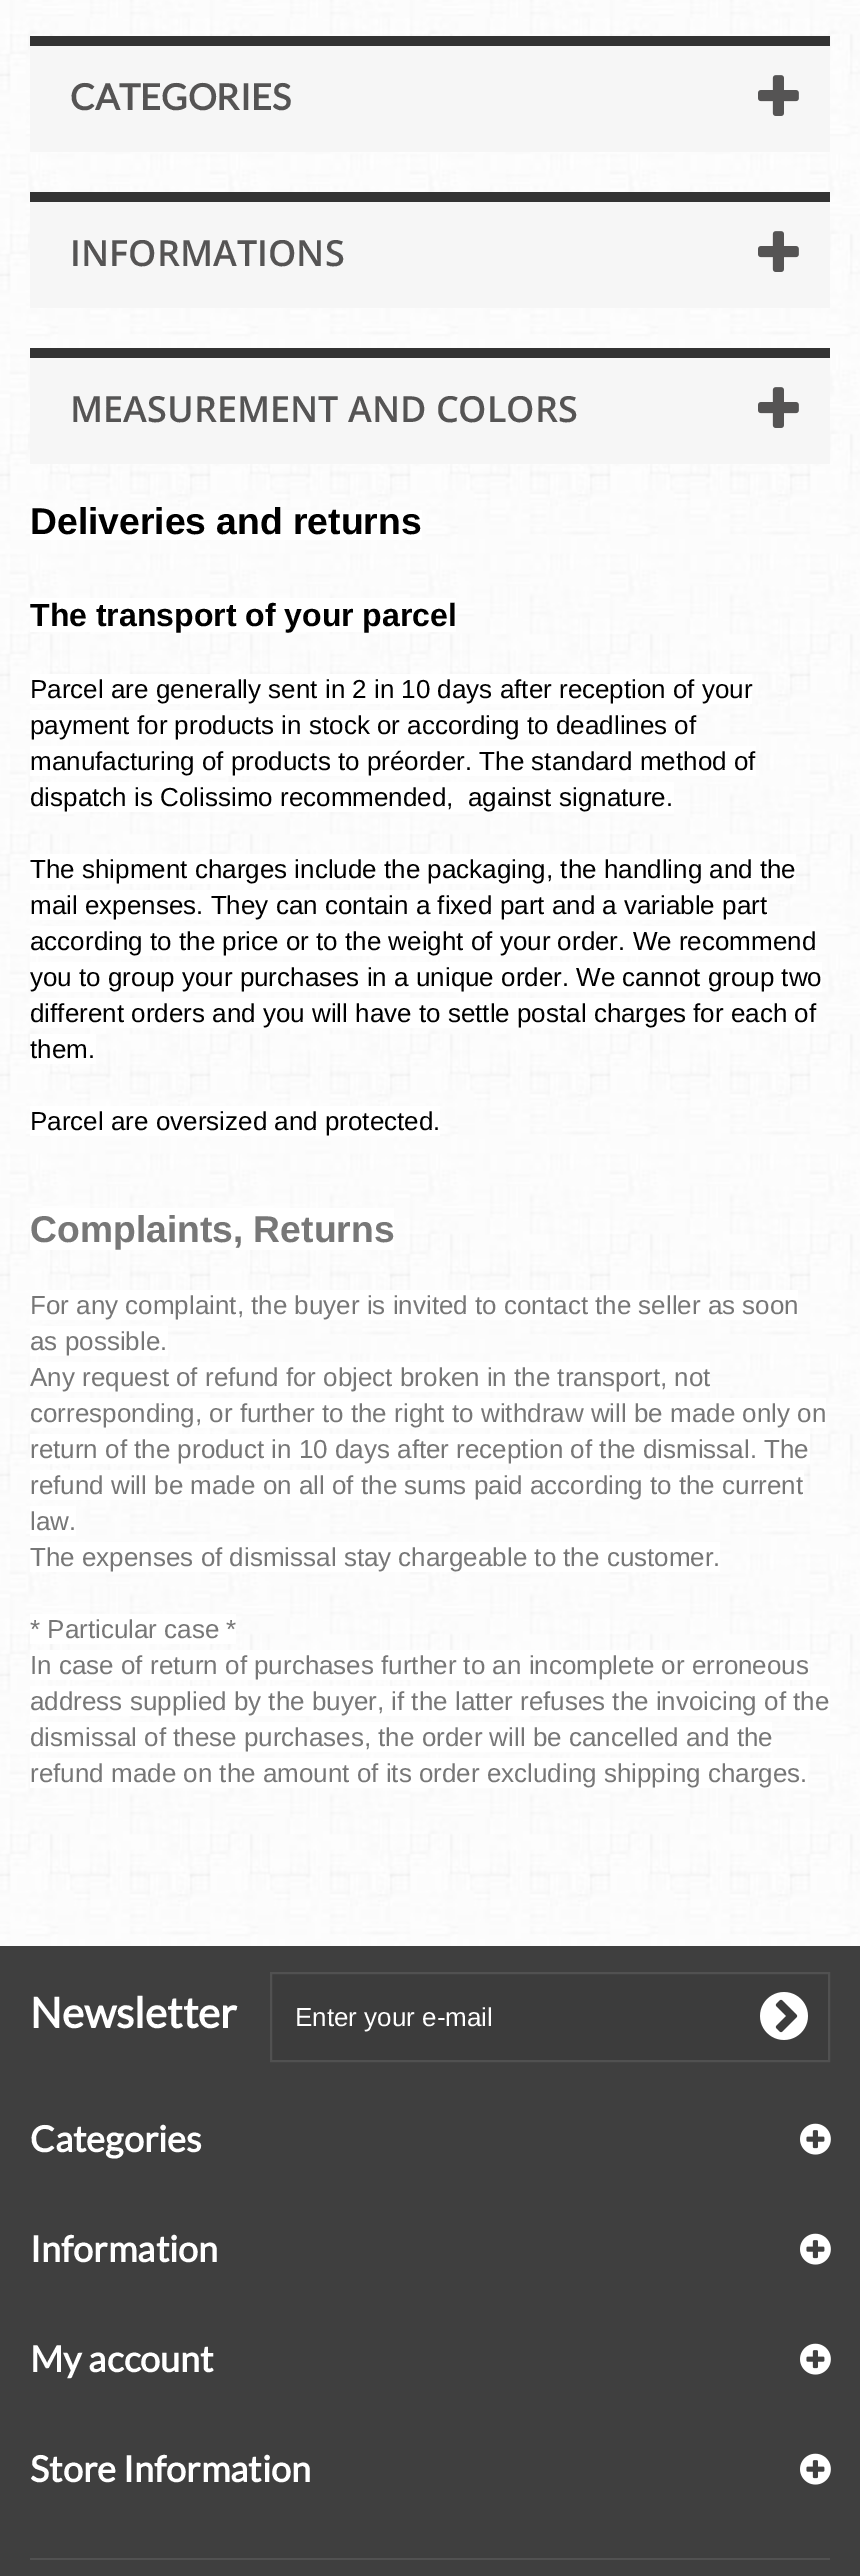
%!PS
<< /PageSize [860 2576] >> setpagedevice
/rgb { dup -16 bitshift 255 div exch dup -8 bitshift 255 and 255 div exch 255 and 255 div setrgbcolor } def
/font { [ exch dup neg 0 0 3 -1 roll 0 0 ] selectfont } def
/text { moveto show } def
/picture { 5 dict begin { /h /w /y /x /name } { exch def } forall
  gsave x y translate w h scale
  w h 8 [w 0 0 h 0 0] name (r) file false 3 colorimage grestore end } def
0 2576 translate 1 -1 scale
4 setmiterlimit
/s1 { /Lato-Bold 36 font 16#555454 rgb } def
/s2 { /OpenSans-SemiBold 36 font 16#555454 rgb } def
/s3 { /LiberationSans-Bold 37.25 font 16#000000 rgb } def
/s4 { /LiberationSans-Bold 32 font 16#000000 rgb } def
/s5 { /LiberationSans-Regular 26 font 16#000000 rgb } def
/s6 { /LiberationSans-Bold 37.25 font 16#777777 rgb } def
/s7 { /LiberationSans-Regular 26 font 16#777777 rgb } def
/s8 { /Lato-Bold 42 font 16#FFFFFF rgb } def
/s9 { /LiberationSans-Regular 26 font 16#FFFFFF rgb } def
/s10 { /Lato-Bold 36 font 16#FFFFFF rgb } def
16#FFFFFF rgb
0 0 860 2576 rectfill
(pic1.raw) 0 0 860 1946 picture
16#F6F6F6 rgb
30 46 800 106 rectfill
16#333333 rgb
30 36 800 10 rectfill
s1
(CATEGORIES) 70 110 text
(pic2.raw) 758 75 41 41 picture
16#F6F6F6 rgb
30 202 800 106 rectfill
16#333333 rgb
30 192 800 10 rectfill
s2
(INFORMATIONS) 70 266 text
(pic2.raw) 758 231 41 41 picture
16#F6F6F6 rgb
30 358 800 106 rectfill
16#333333 rgb
30 348 800 10 rectfill
s2
(MEASUREMENT AND COLORS) 70 422 text
(pic2.raw) 758 387 41 41 picture
16#FFFFFF rgb
30 510 392 30 rectfill
s3
(Deliveries and returns) 30 534 text
16#FFFFFF rgb
30 598 426 34 rectfill
s4
(The transport of your parcel) 30 626 text
16#FFFFFF rgb
30 674 722 30 rectfill
s5
(Parcel are generally sent in 2 in 10 days after reception of your) 30 698 text
16#FFFFFF rgb
30 710 666 30 rectfill
s5
(payment for products in stock or according to deadlines of) 30 734 text
16#FFFFFF rgb
30 746 726 30 rectfill
s5
(manufacturing of products to préorder. The standard method of) 30 770 text
16#FFFFFF rgb
30 782 644 30 rectfill
s5
(dispatch is Colissimo recommended,  against signature.) 30 806 text
16#FFFFFF rgb
30 854 766 30 rectfill
s5
(The shipment charges include the packaging, the handling and the) 30 878 text
16#FFFFFF rgb
30 890 738 30 rectfill
s5
(mail expenses. They can contain a fixed part and a variable part) 30 914 text
16#FFFFFF rgb
30 926 786 30 rectfill
s5
(according to the price or to the weight of your order. We recommend) 30 950 text
16#FFFFFF rgb
30 962 792 30 rectfill
s5
(you to group your purchases in a unique order. We cannot group two) 30 986 text
16#FFFFFF rgb
30 998 786 30 rectfill
s5
(different orders and you will have to settle postal charges for each of) 30 1022 text
16#FFFFFF rgb
30 1034 66 30 rectfill
s5
(them.) 30 1058 text
16#FFFFFF rgb
30 1106 410 30 rectfill
s5
(Parcel are oversized and protected.) 30 1130 text
16#FFFFFF rgb
30 1208 364 42 rectfill
s6
(Complaints, Returns) 30 1242 text
16#FFFFFF rgb
30 1290 768 30 rectfill
s7
(For any complaint, the buyer is invited to contact the seller as soon) 30 1314 text
16#FFFFFF rgb
30 1326 138 30 rectfill
s7
(as possible.) 30 1350 text
16#FFFFFF rgb
30 1362 680 30 rectfill
s7
(Any request of refund for object broken in the transport, not) 30 1386 text
16#FFFFFF rgb
30 1398 796 30 rectfill
s7
(corresponding, or further to the right to withdraw will be made only on) 30 1422 text
16#FFFFFF rgb
30 1434 780 30 rectfill
s7
(return of the product in 10 days after reception of the dismissal. The) 30 1458 text
16#FFFFFF rgb
30 1470 774 30 rectfill
s7
(refund will be made on all of the sums paid according to the current) 30 1494 text
16#FFFFFF rgb
30 1506 46 30 rectfill
s7
(law.) 30 1530 text
16#FFFFFF rgb
30 1542 690 30 rectfill
s7
(The expenses of dismissal stay chargeable to the customer.) 30 1566 text
16#FFFFFF rgb
30 1614 206 30 rectfill
s7
(* Particular case *) 30 1638 text
16#FFFFFF rgb
30 1650 780 30 rectfill
s7
(In case of return of purchases further to an incomplete or erroneous) 30 1674 text
16#FFFFFF rgb
30 1686 800 30 rectfill
s7
(address supplied by the buyer, if the latter refuses the invoicing of the) 30 1710 text
16#FFFFFF rgb
30 1722 742 30 rectfill
s7
(dismissal of these purchases, the order will be cancelled and the) 30 1746 text
16#FFFFFF rgb
30 1758 778 30 rectfill
s7
(refund made on the amount of its order excluding shipping charges.) 30 1782 text
16#3F3F3F rgb
0 1946 860 630 rectfill
s8
(Newsletter) 30 2028 text
16#3C3C3C rgb
271 1973 moveto 829 1973 lineto 829 2061 lineto 271 2061 lineto closepath gsave fill grestore
16#515151 rgb
2 setlinewidth
stroke
s9
(Enter your e-mail) 295 2026 text
(pic3.raw) 760 1992 48 48 picture
s10
(Categories) 30 2152 text
(pic4.raw) 800 2123 31 32 picture
(Information) 30 2262 text
(pic4.raw) 800 2233 31 32 picture
(My account) 30 2372 text
(pic4.raw) 800 2343 31 32 picture
(Store Information) 30 2482 text
(pic4.raw) 800 2453 31 32 picture
16#515151 rgb
30 2558 800 2 rectfill
showpage
